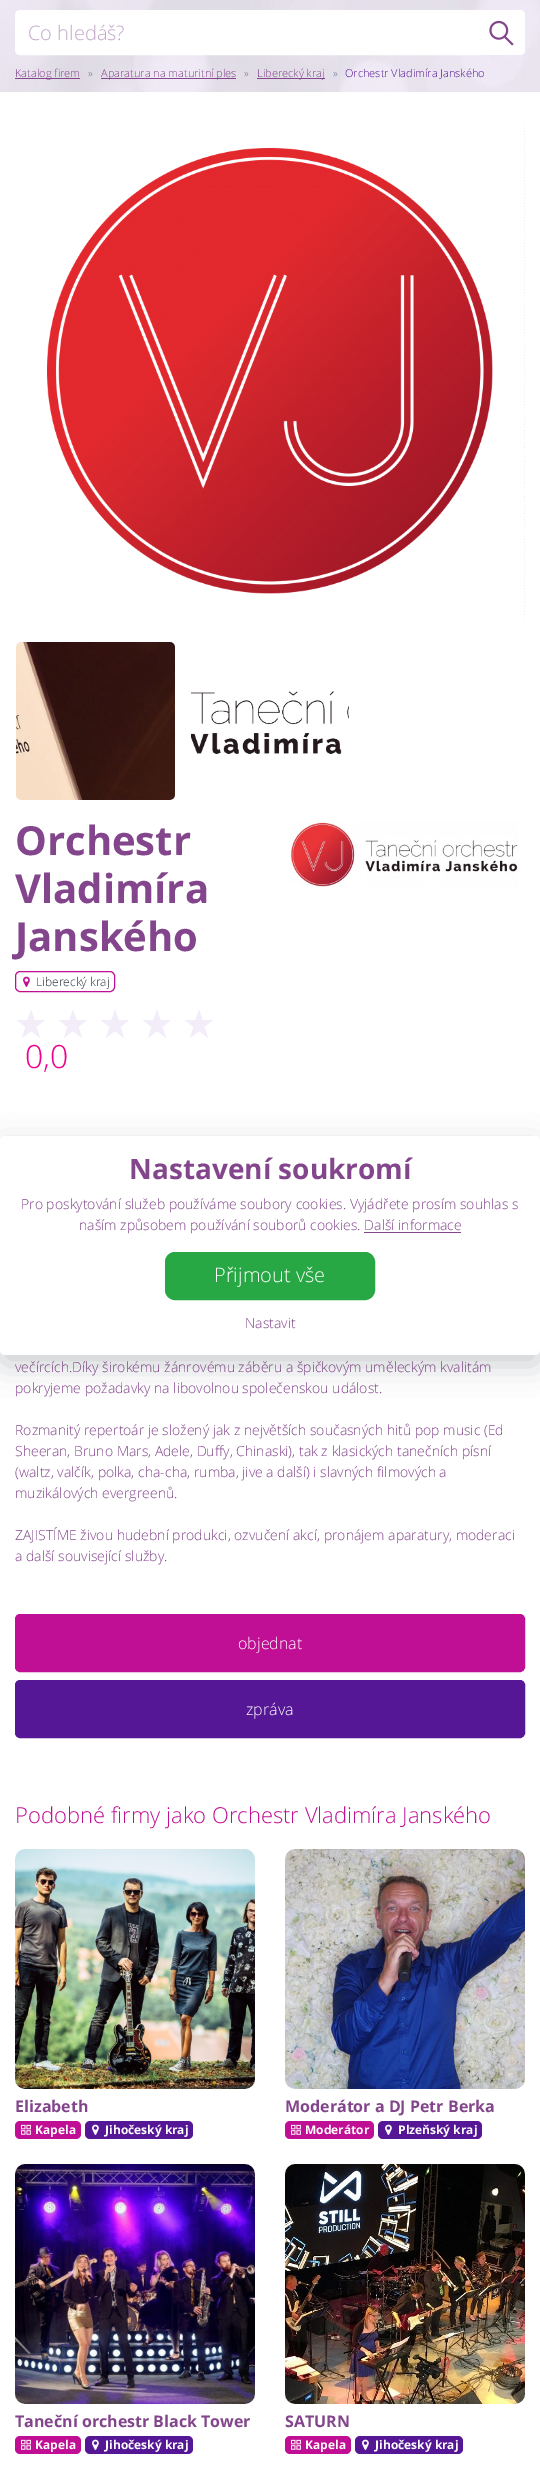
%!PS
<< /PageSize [540 2490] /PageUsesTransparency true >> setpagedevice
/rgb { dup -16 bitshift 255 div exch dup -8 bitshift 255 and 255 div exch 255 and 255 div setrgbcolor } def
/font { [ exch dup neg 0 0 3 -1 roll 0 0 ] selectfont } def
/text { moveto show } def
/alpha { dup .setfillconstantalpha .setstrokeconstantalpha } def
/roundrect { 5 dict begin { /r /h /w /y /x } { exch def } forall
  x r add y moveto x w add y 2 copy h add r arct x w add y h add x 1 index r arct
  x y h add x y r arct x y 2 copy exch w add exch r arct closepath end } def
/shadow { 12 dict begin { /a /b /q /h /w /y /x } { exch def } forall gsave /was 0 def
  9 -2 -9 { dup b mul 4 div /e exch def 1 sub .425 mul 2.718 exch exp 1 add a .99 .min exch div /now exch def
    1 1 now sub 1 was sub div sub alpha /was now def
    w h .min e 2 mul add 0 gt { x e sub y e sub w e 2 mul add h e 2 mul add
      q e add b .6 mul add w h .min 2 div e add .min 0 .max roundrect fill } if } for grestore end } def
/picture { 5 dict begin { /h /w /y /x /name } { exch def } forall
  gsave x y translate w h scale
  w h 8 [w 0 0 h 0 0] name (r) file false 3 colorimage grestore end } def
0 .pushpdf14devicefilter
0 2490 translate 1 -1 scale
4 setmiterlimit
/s1 { /OpenSans-Light 20 font 16#C3A7CA rgb } def
/s2 { /OpenSans-Light 11 font 16#83458B rgb } def
/s3 { /OpenSans-Light 11 font 16#6C757D rgb } def
/s4 { /OpenSans-Light 11 font 16#551795 rgb } def
/s5 { /OpenSans-Bold 40 font 16#83458B rgb } def
/s6 { /OpenSans-Light 12 font 16#343A40 rgb } def
/s7 { /OpenSans-Light 32 font 16#F1008E rgb } def
/s8 { /OpenSans-Light 14 font 16#83458B rgb } def
/s9 { /OpenSans-Light 16 font 16#FFFFFF rgb } def
/s10 { /OpenSans-Light 22 font 16#C00F94 rgb } def
/s11 { /OpenSans-Bold 16 font 16#83458B rgb } def
/s12 { /OpenSans-Bold 12 font 16#FFFFFF rgb } def
/s13 { /OpenSans-Bold 28 font 16#83458B rgb } def
/s14 { /OpenSans-Light 20 font 16#FFFFFF rgb } def
16#FFFFFF rgb
0 0 540 2490 rectfill
(pic1.raw) 0 0 540 92 picture
20 10.5 moveto 478.5 10.5 lineto 478.5 54.5 lineto 20 54.5 lineto 17.5 54.5 15.5 52.5 15.5 50 curveto 15.5 15 lineto 15.5 12.5 17.5 10.5 20 10.5 curveto closepath gsave fill grestore
stroke
s1
(Co hledáš?) 28 40 text
16#FFFFFF rgb
478 10 moveto 520 10 lineto 523 10 525 12 525 15 curveto 525 50 lineto 525 53 523 55 520 55 curveto 478 55 lineto closepath fill
(pic2.raw) 489 20 25 26 picture
16#83458B rgb
15 78 65 1 rectfill
s2
(Katalog firem) 15 77 text
s3
(») 88 77 text
16#83458B rgb
101 78 135 1 rectfill
(Aparatura na maturitní ples) 101 77 text
s3
(») 244 77 text
16#83458B rgb
257 78 68 1 rectfill
(Liberecký kraj) 257 77 text
s3
(») 333 77 text
s4
(Orchestr Vladimíra Janského) 345 77 text
(pic3.raw) 47 119 478 504 picture
(pic4.raw) 16 642 159 158 picture
(pic5.raw) 191 691 158 64 picture
s5
(Orchestr) 15 855 text
(Vladimíra) 15 903 text
(Janského) 15 951 text
16#C00F94 rgb
15.5 971.5 99 20 4.5 roundrect stroke
(pic6.raw) 23 976 7 11 picture
s6
(Liberecký kraj) 36 986 text
16#F3EDF9 rgb
36.5 1027 moveto 40 1038 lineto 31 1031 lineto 22 1038 lineto 25.5 1027 lineto 16.5 1020 lineto 27.5 1020 lineto 31 1009.5 lineto 34.5 1020 lineto 45 1020 lineto closepath fill
78.5 1027 moveto 82 1038 lineto 73 1031 lineto 64 1038 lineto 67.5 1027 lineto 58.5 1020 lineto 69.5 1020 lineto 73 1009.5 lineto 76.5 1020 lineto 87 1020 lineto closepath fill
120.5 1027 moveto 124 1038 lineto 115 1031 lineto 106 1038 lineto 109.5 1027 lineto 100.5 1020 lineto 111.5 1020 lineto 115 1009.5 lineto 118.5 1020 lineto 129 1020 lineto closepath fill
162.5 1027 moveto 166 1038 lineto 157 1031 lineto 148 1038 lineto 151.5 1027 lineto 142.5 1020 lineto 153.5 1020 lineto 157 1009.5 lineto 160.5 1020 lineto 171 1020 lineto closepath fill
204.5 1027 moveto 208 1038 lineto 199 1031 lineto 190 1038 lineto 193.5 1027 lineto 184.5 1020 lineto 195.5 1020 lineto 199 1009.5 lineto 202.5 1020 lineto 213 1020 lineto closepath fill
s7
(0,0) 25 1068 text
(pic7.raw) 290 821 228 67 picture
s8
(večírcích.Díky širokému žánrovému záběru a špičkovým uměleckým kvalitám) 15 1372 text
(pokryjeme požadavky na libovolnou společenskou událost.) 15 1393 text
(Rozmanitý repertoár je složený jak z největších současných hitů pop music \(Ed) 15 1435 text
(Sheeran, Bruno Mars, Adele, Duffy, Chinaski\), tak z klasických tanečních písní) 15 1456 text
(\(waltz, valčík, polka, cha-cha, rumba, jive a další\) i slavných filmových a) 15 1477 text
(muzikálových evergreenů.) 15 1498 text
(ZAJISTÍME živou hudební produkci, ozvučení akcí, pronájem aparatury, moderaci) 15 1540 text
(a další související služby.) 15 1561 text
16#C00F94 rgb
15.5 1614.5 509 57 4.5 roundrect gsave fill grestore
stroke
s9
(objednat) 238 1649 text
16#551795 rgb
15.5 1680.5 509 57 4.5 roundrect gsave fill grestore
stroke
s9
(zpráva) 246 1715 text
s10
(Podobné firmy jako Orchestr Vladimíra Janského) 15 1823 text
(pic8.raw) 15 1849 240 240 picture
s11
(Elizabeth) 15 2112 text
16#C00F94 rgb
15 2121 66 18 5 roundrect fill
(pic9.raw) 21 2124 10 11 picture
s12
(Kapela) 35 2134 text
16#551795 rgb
85 2121 108 18 5 roundrect fill
(pic10.raw) 92 2124 7 11 picture
s12
(Jihočeský kraj) 105 2134 text
(pic11.raw) 285 1849 240 240 picture
s11
(Moderátor a DJ Petr Berka) 285 2112 text
16#C00F94 rgb
285 2121 89 18 5 roundrect fill
(pic9.raw) 291 2124 10 11 picture
s12
(Moderátor) 305 2134 text
16#551795 rgb
378 2121 104 18 5 roundrect fill
(pic10.raw) 385 2124 7 11 picture
s12
(Plzeňský kraj) 398 2134 text
(pic12.raw) 15 2164 240 240 picture
s11
(Taneční orchestr Black Tower) 15 2427 text
16#C00F94 rgb
15 2436 66 18 5 roundrect fill
(pic9.raw) 21 2439 10 11 picture
s12
(Kapela) 35 2449 text
16#551795 rgb
85 2436 108 18 5 roundrect fill
(pic10.raw) 92 2439 7 11 picture
s12
(Jihočeský kraj) 105 2449 text
(pic13.raw) 285 2164 240 240 picture
s11
(SATURN) 285 2427 text
16#C00F94 rgb
285 2436 66 18 5 roundrect fill
(pic9.raw) 291 2439 10 11 picture
s12
(Kapela) 305 2449 text
16#551795 rgb
355 2436 108 18 5 roundrect fill
(pic10.raw) 362 2439 7 11 picture
s12
(Jihočeský kraj) 375 2449 text
16#343A40 rgb
0 1146 540 219 5 15 0.25 shadow
16#FFFFFF rgb
0 1136 540 219 5 roundrect fill
s13
(Nastavení soukromí) 129 1179 text
s8
(Pro poskytování služeb používáme soubory cookies. Vyjádřete prosím souhlas s) 21 1209 text
(naším způsobem používání souborů cookies. Další informace) 79 1230 text
364 1232 97 1 rectfill
16#28A745 rgb
165.5 1252.5 209 47 9.5 roundrect gsave fill grestore
stroke
s14
(Přijmout vše) 214 1282 text
s8
(Nastavit) 245 1328 text
.poppdf14devicefilter showpage
